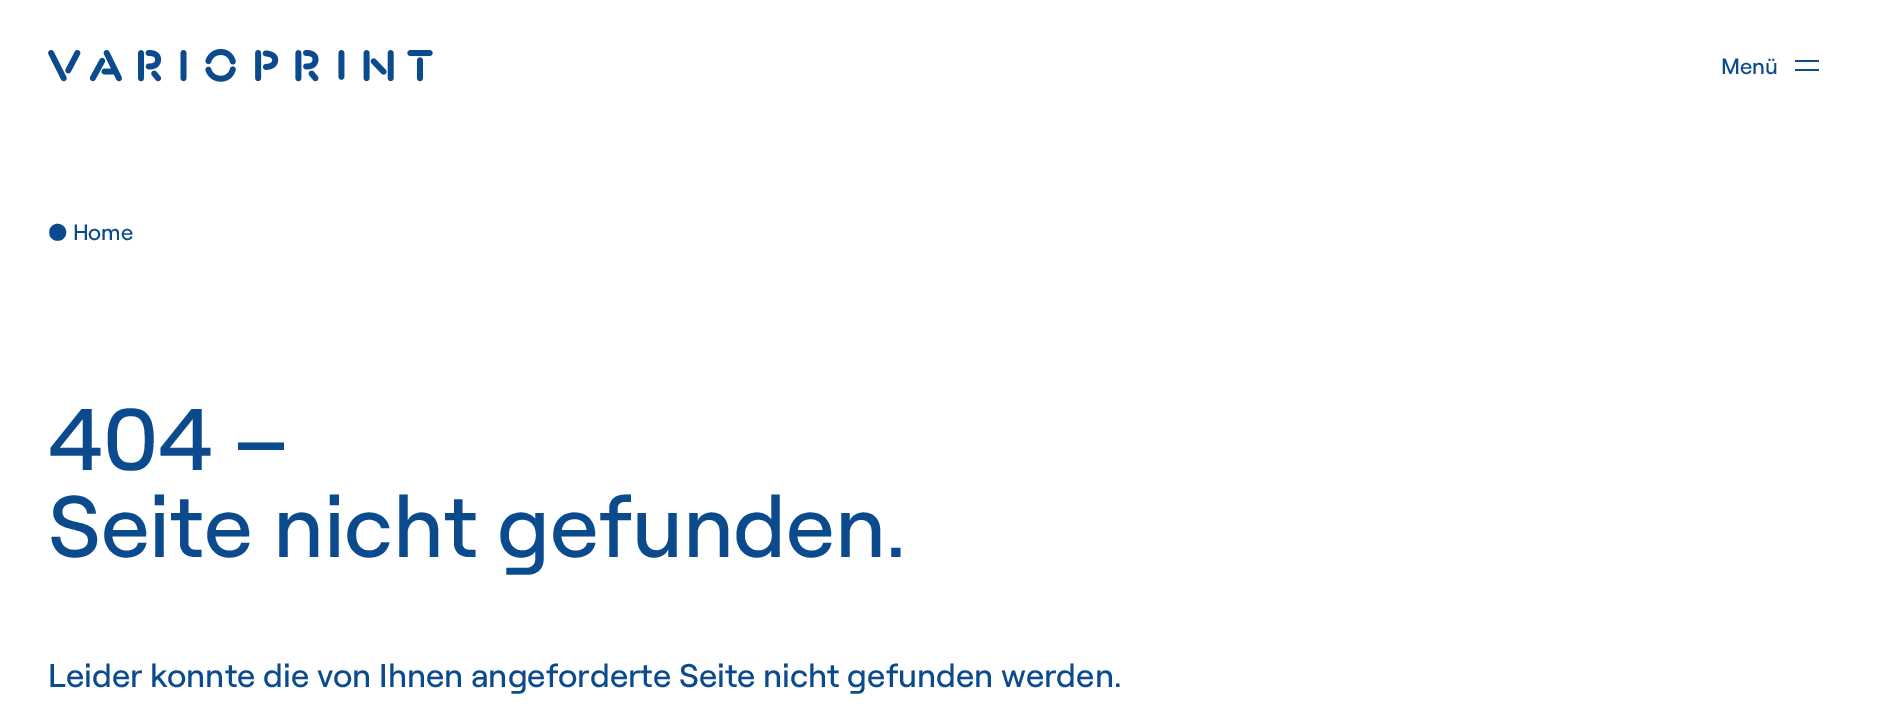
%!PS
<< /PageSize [1887 717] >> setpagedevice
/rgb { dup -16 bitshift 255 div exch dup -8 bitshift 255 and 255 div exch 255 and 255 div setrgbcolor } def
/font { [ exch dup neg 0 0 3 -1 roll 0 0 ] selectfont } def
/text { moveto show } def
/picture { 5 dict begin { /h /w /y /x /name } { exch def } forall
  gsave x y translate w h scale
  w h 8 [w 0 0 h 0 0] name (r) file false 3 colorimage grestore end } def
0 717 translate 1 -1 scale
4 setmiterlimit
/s1 { /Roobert-Medium 22 font 16#0A4A8D rgb } def
/s2 { /Roobert-Medium 87.25 font 16#0A4A8D rgb } def
/s3 { /Roobert-Medium 32.75 font 16#0A4A8D rgb } def
16#FFFFFF rgb
0 0 1887 717 rectfill
(pic1.raw) 48 49 385 33 picture
s1
(Menü) 1721 74 text
1795 60 24 2 rectfill
1795 69 24 2 rectfill
(● Home) 48 240 text
s2
(404 –) 48 470 text
(Seite nicht gefunden.) 48 557 text
s3
(Leider konnte die von Ihnen angeforderte Seite nicht gefunden werden.) 48 687 text
showpage
